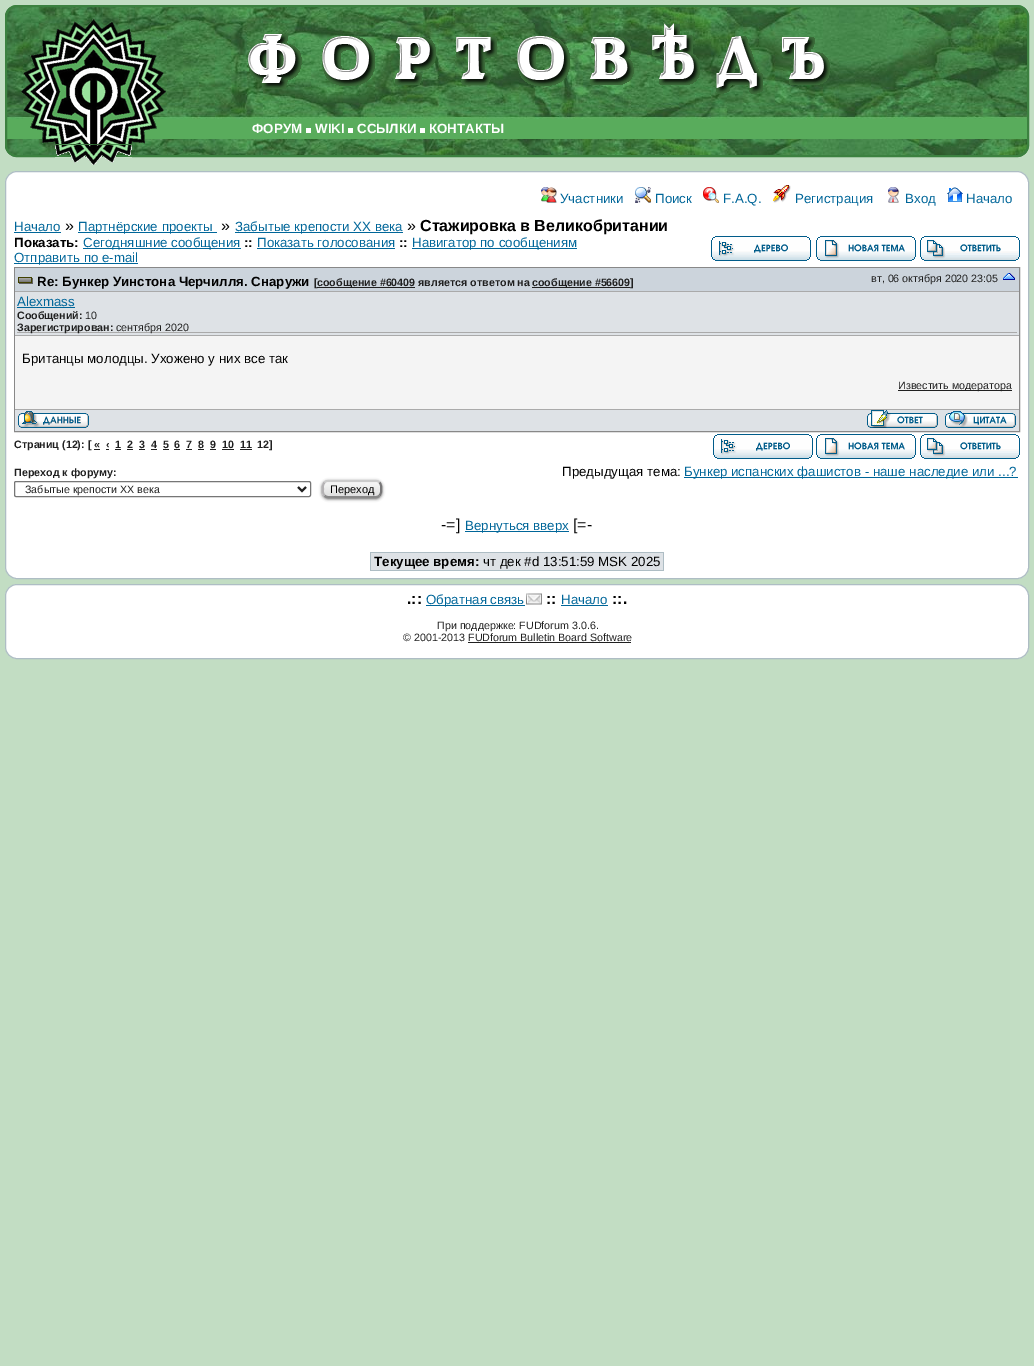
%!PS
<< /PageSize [1034 1366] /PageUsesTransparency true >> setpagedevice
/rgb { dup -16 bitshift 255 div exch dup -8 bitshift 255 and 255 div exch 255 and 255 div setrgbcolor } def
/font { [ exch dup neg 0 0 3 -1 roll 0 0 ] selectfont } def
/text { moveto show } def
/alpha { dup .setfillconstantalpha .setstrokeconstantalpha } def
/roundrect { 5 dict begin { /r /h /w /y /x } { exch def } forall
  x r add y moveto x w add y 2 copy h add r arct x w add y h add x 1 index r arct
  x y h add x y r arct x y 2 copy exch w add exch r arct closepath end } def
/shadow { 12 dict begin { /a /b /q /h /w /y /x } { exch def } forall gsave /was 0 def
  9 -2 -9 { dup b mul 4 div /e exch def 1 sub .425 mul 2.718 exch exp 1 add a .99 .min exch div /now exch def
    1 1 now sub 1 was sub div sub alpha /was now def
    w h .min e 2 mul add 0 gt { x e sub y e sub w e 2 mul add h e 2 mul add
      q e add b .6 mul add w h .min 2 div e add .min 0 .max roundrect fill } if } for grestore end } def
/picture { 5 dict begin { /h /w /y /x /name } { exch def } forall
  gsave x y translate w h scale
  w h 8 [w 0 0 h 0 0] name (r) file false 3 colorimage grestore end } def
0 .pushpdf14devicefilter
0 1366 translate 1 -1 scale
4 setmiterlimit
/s1 { /LiberationSans-Bold 13.3 font 16#FFFFFF rgb } def
/s2 { /LiberationSans-Regular 13.3 font 16#006699 rgb } def
/s3 { /LiberationSans-Regular 16 font 16#000000 rgb } def
/s4 { /LiberationSans-Bold 16 font 16#000000 rgb } def
/s5 { /LiberationSans-Bold 13.3 font 16#000000 rgb } def
/s6 { /LiberationSans-Bold 10.7 font 16#202020 rgb } def
/s7 { /LiberationSans-Regular 10.7 font 16#202020 rgb } def
/s8 { /LiberationSans-Regular 13.3 font 16#000000 rgb } def
/s9 { /LiberationSans-Regular 11 font 16#000000 rgb } def
16#C2DDC3 rgb
0 0 1034 1366 rectfill
(pic1.raw) 5 5 1024 152 picture
16#3C8140 rgb
2 setlinewidth
6 6 1022 150 11 roundrect stroke
(pic2.raw) 21 19 145 125 picture
(pic3.raw) 55 145 77 20 picture
(pic4.raw) 248 23 582 71 picture
s1
(ФОРУМ) 252 133 text
306 128 5 5 rectfill
(WIKI) 315 133 text
348 128 5 5 rectfill
(ССЫЛКИ) 357 133 text
420 128 5 5 rectfill
(КОНТАКТЫ) 429 133 text
5.5 171.5 1023 407 11.5 roundrect gsave fill grestore
16#AEBDC4 rgb
1 setlinewidth
stroke
(pic5.raw) 541 187 16 16 picture
s2
(Участники) 560 203 text
(pic6.raw) 635 187 16 16 picture
(Поиск) 655 203 text
(pic7.raw) 703 187 16 16 picture
(F.A.Q.) 723 203 text
(pic8.raw) 773 185 18 18 picture
(Регистрация) 795 203 text
(pic9.raw) 888 187 12 16 picture
(Вход) 905 203 text
(pic10.raw) 947 187 16 15 picture
(Начало) 966 203 text
(Начало) 14 231 text
14 232 47 1 rectfill
s3
(») 65 231 text
16#006699 rgb
78 232 139 1 rectfill
s2
(Партнёрские проекты) 78 231 text
s3
(») 221 231 text
16#006699 rgb
235 232 168 1 rectfill
s2
(Забытые крепости ХХ века) 235 231 text
s3
(») 407 231 text
s4
(Стажировка в Великобритании) 420 231 text
s5
(Показать:) 14 247 text
16#006699 rgb
83 248 158 1 rectfill
s2
(Сегодняшние сообщения) 83 247 text
s5
(::) 244 247 text
s2
(Показать голосования) 257 247 text
257 248 138 1 rectfill
s5
(::) 399 247 text
16#006699 rgb
412 248 165 1 rectfill
s2
(Навигатор по сообщениям) 412 247 text
14 263 124 1 rectfill
(Отправить по e-mail) 14 262 text
(pic11.raw) 711 236 100 25 picture
(pic12.raw) 816 236 100 25 picture
(pic13.raw) 920 236 100 25 picture
16#888888 rgb
14.5 267.5 1005 164 rectstroke
16#CCD4DC rgb
15 268 1004 23 rectfill
16#AAAAAA rgb
15 291 1004 1 rectfill
(pic14.raw) 18 277 15 7 picture
s5
(Re: Бункер Уинстона Черчилля. Снаружи) 37 286 text
s6
([) 314 286 text
317 287 98 1 rectfill
(сообщение #60409 является ответом на) 317 286 text
532 287 98 1 rectfill
(сообщение #56609]) 532 286 text
s7
(вт, 06 октября 2020 23:05) 871 282 text
(pic15.raw) 1003 273 12 7 picture
16#DEE2E6 rgb
15 292 1004 43 rectfill
16#AAAAAA rgb
15 335 1004 1 rectfill
17 332 1000 1 rectfill
s2
(Alexmass) 17 306 text
17 307 58 1 rectfill
s6
(Сообщений:) 17 319 text
s7
(10) 85 319 text
s6
(Зарегистрирован:) 17 331 text
s7
(сентября 2020) 116 331 text
16#F4F4F4 rgb
15 336 1004 73 rectfill
16#AAAAAA rgb
15 409 1004 1 rectfill
s8
(Британцы молодцы. Ухожено у них все так) 22 363 text
16#202020 rgb
898 390 114 1 rectfill
s7
(Известить модератора) 898 389 text
16#DEE2E6 rgb
15 410 1004 21 rectfill
(pic16.raw) 18 411 71 17 picture
(pic17.raw) 867 410 71 18 picture
(pic18.raw) 945 411 71 17 picture
s6
(Страниц \(12\): [ «) 14 448 text
94 449 6 1 rectfill
(‹) 106 448 text
106 449 3 1 rectfill
(1) 115 448 text
115 449 6 1 rectfill
(2) 127 448 text
127 449 6 1 rectfill
(3) 139 448 text
139 449 6 1 rectfill
(4) 151 448 text
151 449 6 1 rectfill
(5) 163 448 text
163 449 6 1 rectfill
(6) 174 448 text
174 449 6 1 rectfill
(7) 186 448 text
186 449 6 1 rectfill
(8) 198 448 text
198 449 6 1 rectfill
(9) 210 448 text
210 449 6 1 rectfill
(10) 222 448 text
222 449 12 1 rectfill
(11) 240 448 text
240 449 12 1 rectfill
(12]) 257 448 text
(pic11.raw) 713 434 100 25 picture
(pic12.raw) 816 434 100 25 picture
(pic13.raw) 920 434 100 25 picture
(Переход к форуму:) 14 476 text
s8
(Предыдущая тема:) 562 476 text
16#006699 rgb
684 477 334 1 rectfill
(Бункер испанских фашистов - наше наследие или ...?) 684 476 text
16#767676 rgb
14.5 481.5 296 15 1.5 roundrect stroke
16#202020 rgb
2 setlinewidth
298 487 moveto 302 491 lineto 306 487 lineto stroke
s7
(Забытые крепости ХХ века) 25 493 text
16#000000 rgb
322 481 60 18 6 1.5 0.6 shadow
(pic19.raw) 322 482 60 15 picture
16#CCCCCC rgb
324.5 482.5 moveto 325.5 481.5 326.5 481 328 481 curveto 376 481 lineto 377.5 481 378.5 481.5 379.5 482.5 curveto stroke
16#787778 rgb
379.5 482.5 moveto 381.5 484.5 381 486.5 381 489 curveto 381 491.5 381.5 493.5 379.5 495.5 curveto stroke
16#888888 rgb
379.5 495.5 moveto 378.5 496.5 377.5 497 376 497 curveto 328 497 lineto 326.5 497 325.5 496.5 324.5 495.5 curveto stroke
16#B4B2B4 rgb
324.5 495.5 moveto 322.5 493.5 323 491.5 323 489 curveto 323 486.5 322.5 484.5 324.5 482.5 curveto stroke
s9
(Переход) 330 493 text
s3
(-=]) 441 530 text
16#006699 rgb
465 531 104 1 rectfill
s2
(Вернуться вверх) 465 530 text
s3
([=-) 573 530 text
16#DEE2E6 rgb
371 553 292 17 rectfill
s5
(Текущее время:) 374 566 text
16#AEBDC4 rgb
370 552 294 1 rectfill
370 570 109 1 rectfill
370 552 1 19 rectfill
s8
(чт дек #d 13:51:59 MSK 2025) 483 566 text
16#AEBDC4 rgb
663 552 1 19 rectfill
479 570 185 1 rectfill
16#FFFFFF rgb
5.5 584.5 1023 74 11.5 roundrect gsave fill grestore
16#AEBDC4 rgb
1 setlinewidth
stroke
s4
(.::) 407 604 text
16#006699 rgb
426 605 99 1 rectfill
s2
(Обратная связь) 426 604 text
(pic20.raw) 526 593 16 12 picture
s4
(::) 546 604 text
s2
(Начало) 561 604 text
561 605 47 1 rectfill
s4
(::.) 612 604 text
s7
(При поддержке: FUDforum 3.0.6.) 437 629 text
(© 2001-2013 FUDforum Bulletin Board Software) 403 641 text
468 642 163 1 rectfill
.poppdf14devicefilter showpage
